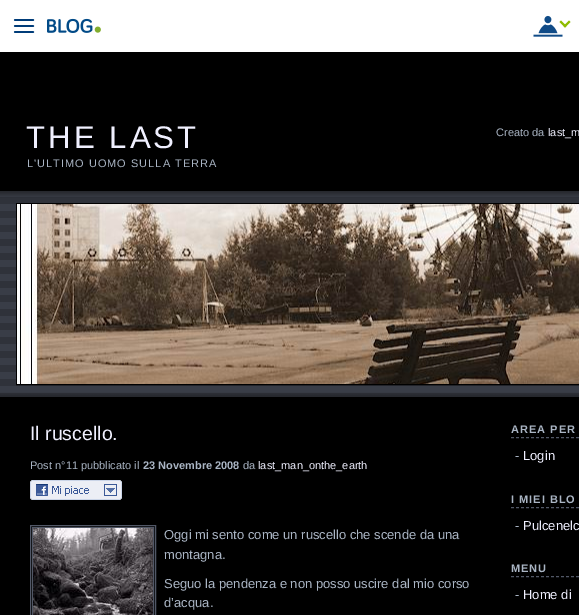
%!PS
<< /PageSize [579 615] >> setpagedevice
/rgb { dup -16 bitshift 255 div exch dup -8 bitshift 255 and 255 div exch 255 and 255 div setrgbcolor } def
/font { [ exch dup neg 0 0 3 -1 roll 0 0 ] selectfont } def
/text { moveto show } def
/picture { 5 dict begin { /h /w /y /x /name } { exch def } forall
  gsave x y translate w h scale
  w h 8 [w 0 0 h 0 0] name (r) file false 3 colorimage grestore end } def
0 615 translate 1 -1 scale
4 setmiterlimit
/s1 { /LiberationSans-Regular 11 font 16#AAB5C4 rgb } def
/s2 { /LiberationSans-Regular 11 font 16#F0F0FF rgb } def
/s3 { /LiberationSans-Regular 19.5 font 16#F0F0FF rgb } def
/s4 { /LiberationSans-Bold 11 font 16#AAB5C4 rgb } def
/s5 { /LiberationSans-Regular 13 font 16#AAB5C4 rgb } def
/s6 { /LiberationSans-Regular 13 font 16#F0F0FF rgb } def
16#000000 rgb
0 0 579 615 rectfill
16#FFFFFF rgb
0 0 579 52 rectfill
(pic1.raw) 13 19 22 14 picture
(pic2.raw) 47 18 54 15 picture
(pic3.raw) 533 15 30 22 picture
16#8EBC00 rgb
569 20.5 moveto 570.5 22 lineto 565 27.5 lineto 563.5 26 lineto closepath fill
561 20.5 moveto 566.5 26 lineto 565 27.5 lineto 559.5 22 lineto closepath fill
/LiberationSans-Regular 31.25 font
16#F0F0FF rgb
26 148 moveto 3 0 (THE LAST) ashow
s1
(Creato da) 496 136 text
s2
(last_m) 548 136 text
16#AAB5C4 rgb
27 167 moveto 1 0 (L'ULTIMO UOMO SULLA TERRA) ashow
(pic4.raw) 0 191 579 206 picture
16#000000 rgb
16.5 203.5 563 181 rectstroke
(pic5.raw) 17 204 562 180 picture
s3
(Il ruscello.) 30 440 text
s1
(Post n°11 pubblicato il) 30 469 text
s4
(23 Novembre 2008) 143 469 text
s1
(da) 243 469 text
s2
(last_man_onthe_earth) 258 469 text
(pic6.raw) 30 480 92 20 picture
16#515766 rgb
30.5 525.5 125 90 rectstroke
32.5 527.5 121 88 rectstroke
(pic7.raw) 33 528 120 87 picture
s5
(Oggi mi sento come un ruscello che scende da una) 164 539 text
(montagna.) 164 559 text
(Seguo la pendenza e non posso uscire dal mio corso) 164 588 text
(d’acqua.) 164 607 text
16#515766 rgb
[3 2] 0 setdash
511 437.5 moveto 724 437.5 lineto stroke
/LiberationSans-Bold 11 font
16#AAB5C4 rgb
511 433 moveto 1 0 (AREA PER) ashow
s5
(-) 515 460 text
s6
(Login) 523 460 text
16#515766 rgb
511 507.5 moveto 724 507.5 lineto stroke
/LiberationSans-Bold 11 font
16#AAB5C4 rgb
511 503 moveto 1 0 (I MIEI BLO) ashow
s5
(-) 515 530 text
s6
(Pulcenelc) 523 530 text
16#515766 rgb
511 576.5 moveto 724 576.5 lineto stroke
/LiberationSans-Bold 11 font
16#AAB5C4 rgb
511 572 moveto 1 0 (MENU) ashow
s5
(-) 515 599 text
s6
(Home di) 523 599 text
showpage
